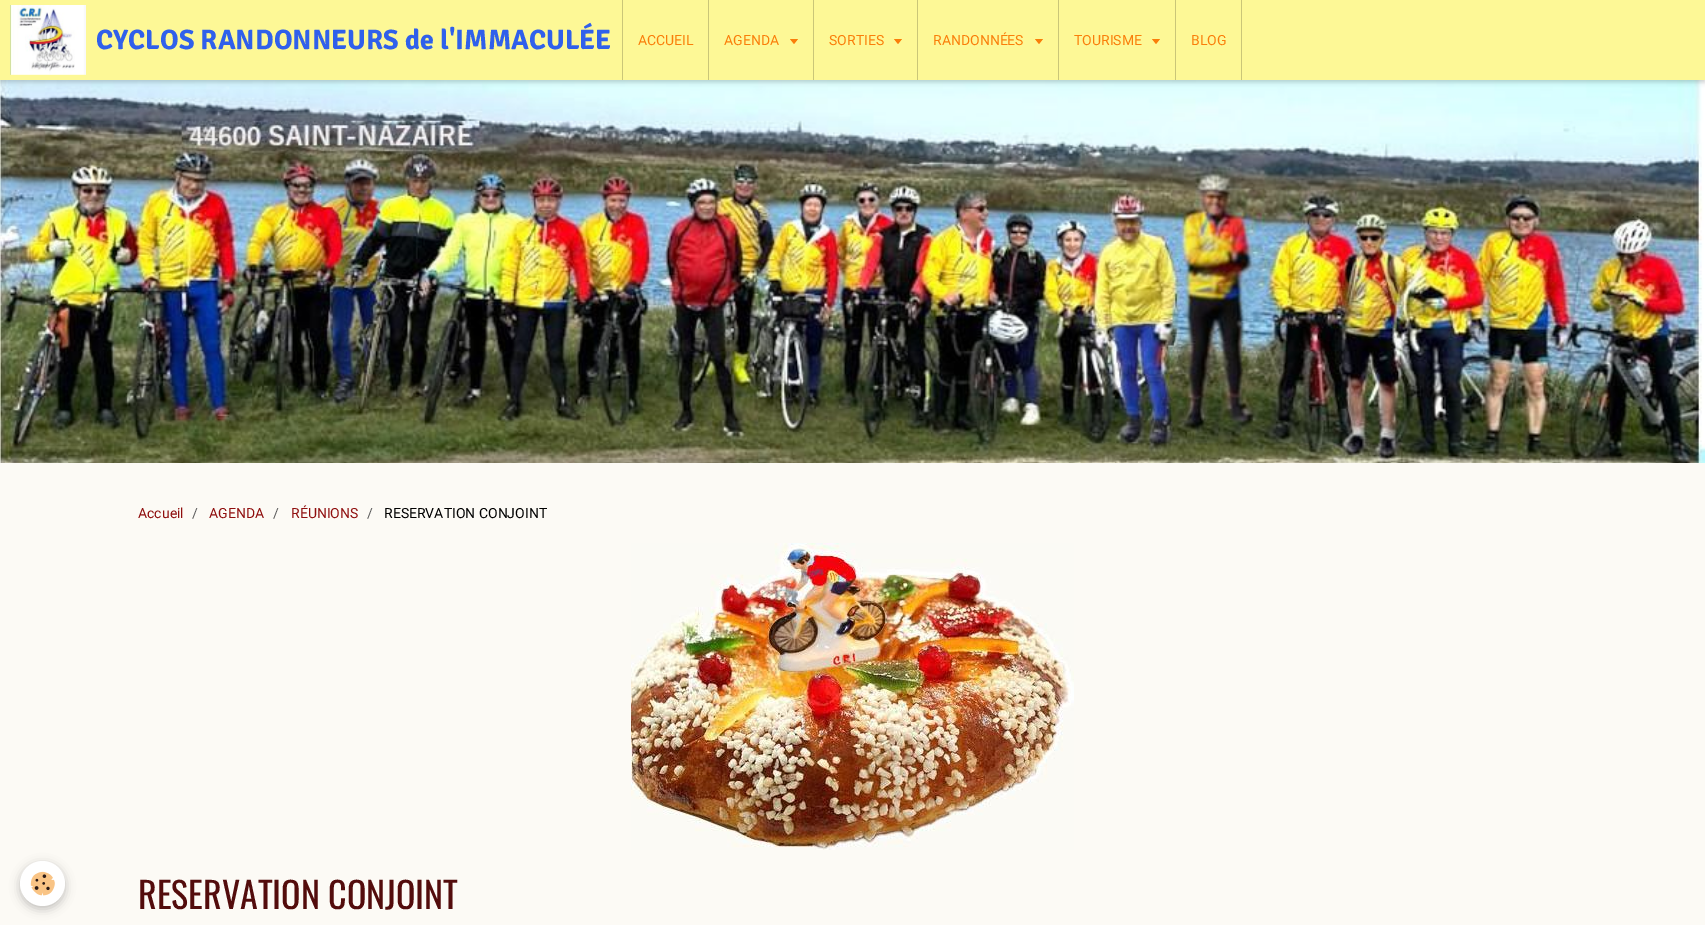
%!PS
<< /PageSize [1705 925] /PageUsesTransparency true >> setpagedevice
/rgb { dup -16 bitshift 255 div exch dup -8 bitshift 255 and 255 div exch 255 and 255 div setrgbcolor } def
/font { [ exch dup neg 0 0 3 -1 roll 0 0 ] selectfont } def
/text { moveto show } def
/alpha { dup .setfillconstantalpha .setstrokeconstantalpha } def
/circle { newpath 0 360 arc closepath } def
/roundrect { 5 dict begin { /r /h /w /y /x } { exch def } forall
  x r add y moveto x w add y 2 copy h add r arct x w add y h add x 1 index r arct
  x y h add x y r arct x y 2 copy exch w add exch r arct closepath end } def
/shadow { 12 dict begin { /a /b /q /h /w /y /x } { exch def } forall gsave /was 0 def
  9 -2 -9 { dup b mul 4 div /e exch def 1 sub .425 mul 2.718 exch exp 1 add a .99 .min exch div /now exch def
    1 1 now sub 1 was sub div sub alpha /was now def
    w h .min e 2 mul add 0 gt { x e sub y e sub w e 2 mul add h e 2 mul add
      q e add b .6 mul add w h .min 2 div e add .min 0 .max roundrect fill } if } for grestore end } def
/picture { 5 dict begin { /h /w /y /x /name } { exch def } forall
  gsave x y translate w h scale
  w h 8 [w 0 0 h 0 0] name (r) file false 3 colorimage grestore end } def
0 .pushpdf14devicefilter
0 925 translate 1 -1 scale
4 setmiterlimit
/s1 { /Signika-Bold 28 font 16#3060EB rgb } def
/s2 { /Roboto-Regular 14 font 16#FA7E0A rgb } def
/s3 { /Roboto-Regular 14 font 16#8F0E0E rgb } def
/s4 { /Roboto-Regular 14 font 16#5B5B5B rgb } def
/s5 { /Roboto-Regular 14 font 16#000000 rgb } def
/s6 { /Oswald-Regular 36 font 16#530C0C rgb } def
16#FCFAF5 rgb
0 0 1705 925 rectfill
(pic2.raw) 0 80 1705 383 picture
16#000000 rgb
0 2 1705 80 0 2.5 0.2 shadow
16#FDF896 rgb
0 0 1705 80 rectfill
(pic1.raw) 10 5 76 70 picture
s1
(CYCLOS RANDONNEURS de l'IMMACULÉE) 96 49 text
16#CAC678 rgb
708 0 1 80 rectfill
622 0 1 80 rectfill
s2
(ACCUEIL) 638 45 text
16#CAC678 rgb
813 0 1 80 rectfill
s2
(AGENDA) 724 45 text
790 39 moveto 798 39 lineto 794 44 lineto closepath fill
16#CAC678 rgb
917 0 1 80 rectfill
s2
(SORTIES) 829 45 text
894 39 moveto 902 39 lineto 898 44 lineto closepath fill
16#CAC678 rgb
1058 0 1 80 rectfill
s2
(RANDONNÉES) 933 45 text
1035 39 moveto 1043 39 lineto 1039 44 lineto closepath fill
16#CAC678 rgb
1175 0 1 80 rectfill
s2
(TOURISME) 1074 45 text
1152 39 moveto 1160 39 lineto 1156 44 lineto closepath fill
16#CAC678 rgb
1241 0 1 80 rectfill
s2
(BLOG) 1191 45 text
16#000000 rgb
20 864 45 45 22.5 5 0.24 shadow
16#FFFFFF rgb
42.5 883.5 22.5 circle fill
(pic3.raw) 30 871 25 25 picture
s3
(Accueil) 138 518 text
s4
(/) 192 518 text
s3
(AGENDA) 209 518 text
s4
(/) 273 518 text
s3
(RÉUNIONS) 291 518 text
s4
(/) 367 518 text
s5
(RESERVATION CONJOINT) 384 518 text
(pic4.raw) 631 543 443 307 picture
s6
(RESERVATION CONJOINT) 138 909 text
.poppdf14devicefilter showpage
